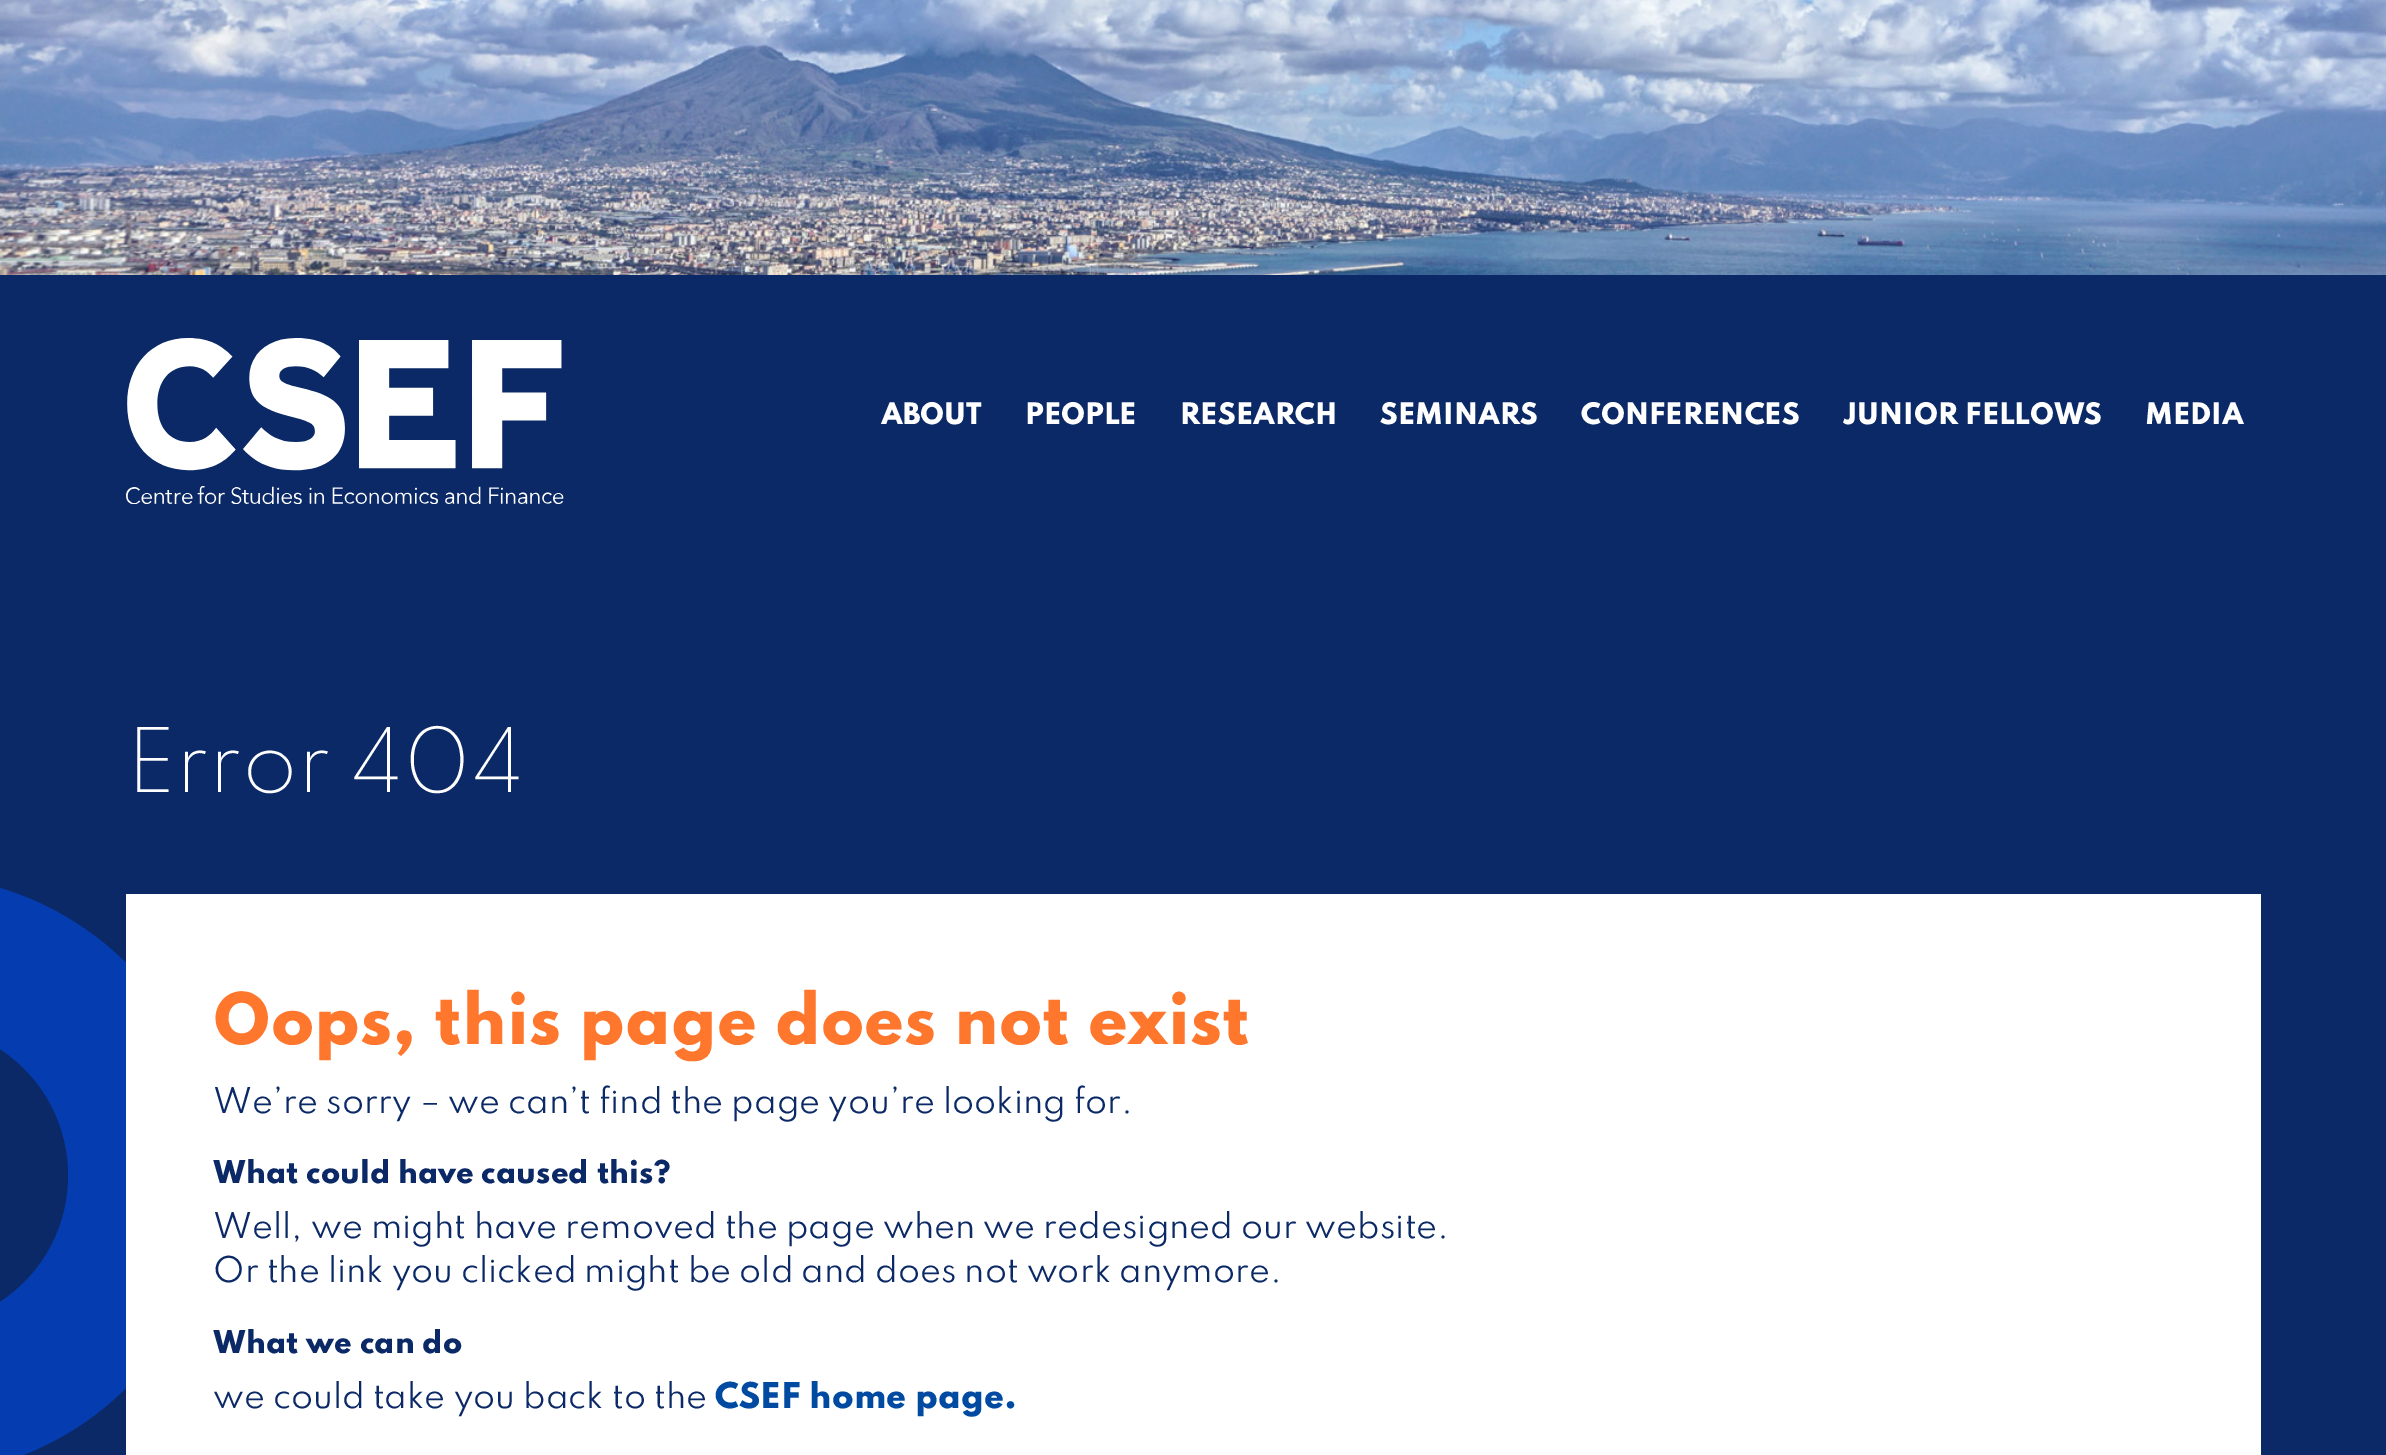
%!PS
<< /PageSize [2386 1455] >> setpagedevice
/rgb { dup -16 bitshift 255 div exch dup -8 bitshift 255 and 255 div exch 255 and 255 div setrgbcolor } def
/font { [ exch dup neg 0 0 3 -1 roll 0 0 ] selectfont } def
/text { moveto show } def
/picture { 5 dict begin { /h /w /y /x /name } { exch def } forall
  gsave x y translate w h scale
  w h 8 [w 0 0 h 0 0] name (r) file false 3 colorimage grestore end } def
0 1455 translate 1 -1 scale
4 setmiterlimit
/s1 { /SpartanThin-ExtraBold 26.25 font 16#FFFFFF rgb } def
/s2 { /SpartanThin-ExtraLight 78.75 font 16#FFFFFF rgb } def
/s3 { /SpartanThin-ExtraBold 63 font 16#FF762D rgb } def
/s4 { /SpartanThin-Regular 31.5 font 16#0B2966 rgb } def
/s5 { /SpartanThin-ExtraBold 28 font 16#0B2966 rgb } def
/s6 { /SpartanThin-ExtraBold 31.5 font 16#004BA1 rgb } def
16#0B2966 rgb
0 0 2386 1455 rectfill
(pic1.raw) 0 0 2386 275 picture
16#053DB0 rgb
0 888 moveto 0 1049 lineto 91 1109 91 1242 0 1302 curveto 0 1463 lineto 124 1426 215 1311 215 1175 curveto 215 1040 124 925 0 888 curveto closepath fill
(pic2.raw) 126 338 438 166 picture
s1
(ABOUT) 881 424 text
(PEOPLE) 1025 424 text
(RESEARCH) 1180 424 text
(SEMINARS) 1380 424 text
(CONFERENCES) 1581 424 text
(JUNIOR FELLOWS) 1843 424 text
(MEDIA) 2145 424 text
s2
(Error 404) 126 792 text
126 894 2135 561 rectfill
s3
(Oops, this page does not exist) 213 1044 text
s4
(We’re sorry – we can’t find the page you’re looking for.) 213 1113 text
s5
(What could have caused this?) 213 1183 text
s4
(Well, we might have removed the page when we redesigned our website.) 213 1238 text
(Or the link you clicked might be old and does not work anymore.) 213 1282 text
s5
(What we can do) 213 1353 text
s4
(we could take you back to the) 213 1408 text
s6
(CSEF home page.) 715 1408 text
showpage
